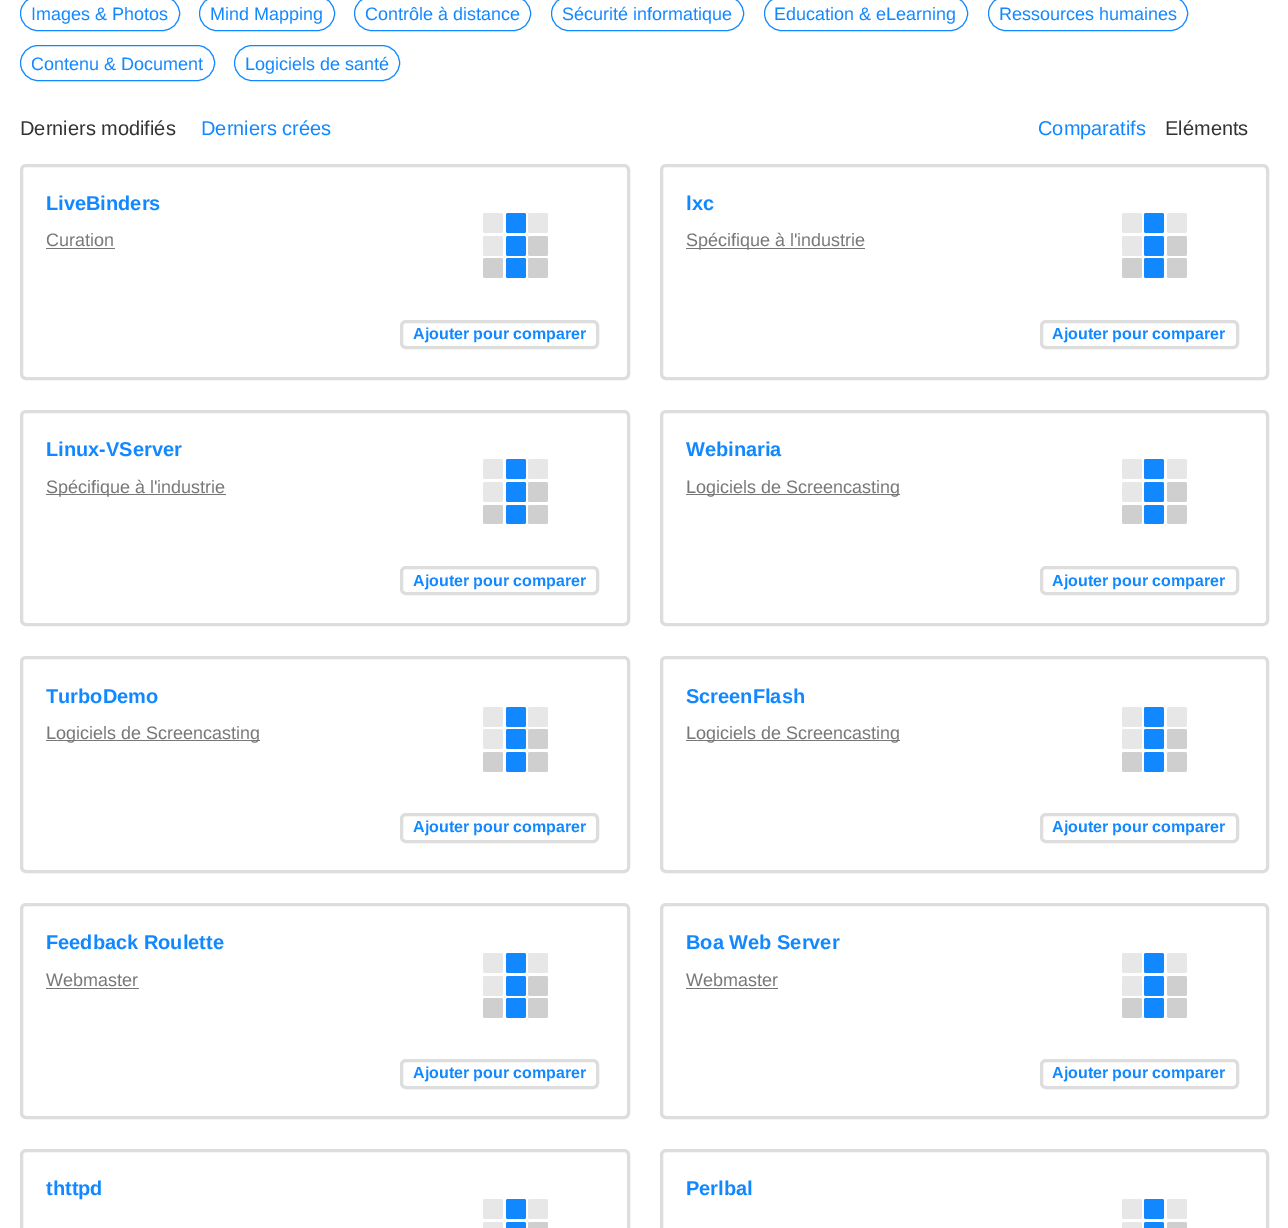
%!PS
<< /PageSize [1288 1228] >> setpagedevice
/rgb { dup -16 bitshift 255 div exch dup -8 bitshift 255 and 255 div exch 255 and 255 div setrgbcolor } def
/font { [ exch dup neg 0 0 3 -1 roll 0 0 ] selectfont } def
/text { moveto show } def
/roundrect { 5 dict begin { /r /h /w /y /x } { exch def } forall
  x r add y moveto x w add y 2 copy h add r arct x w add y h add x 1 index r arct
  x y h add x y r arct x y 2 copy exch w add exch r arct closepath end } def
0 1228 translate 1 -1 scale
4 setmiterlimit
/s1 { /LiberationSans-Regular 18 font 16#1188FF rgb } def
/s2 { /LiberationSans-Regular 20 font 16#333333 rgb } def
/s3 { /LiberationSans-Regular 20 font 16#1188FF rgb } def
/s4 { /LiberationSans-Bold 20 font 16#1188FF rgb } def
/s5 { /LiberationSans-Regular 18 font 16#777777 rgb } def
/s6 { /LiberationSans-Bold 16 font 16#1188FF rgb } def
16#FFFFFF rgb
0 0 1288 1228 rectfill
16#1188FF rgb
20.5 -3.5 159 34 17 roundrect stroke
s1
(Images & Photos) 31 20 text
199.5 -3.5 135 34 17 roundrect stroke
(Mind Mapping) 210 20 text
354.5 -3.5 176 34 17 roundrect stroke
(Contrôle à distance) 365 20 text
551.5 -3.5 192 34 17 roundrect stroke
(Sécurité informatique) 562 20 text
764.5 -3.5 203 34 17 roundrect stroke
(Education & eLearning) 774 20 text
988.5 -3.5 199 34 17 roundrect stroke
(Ressources humaines) 999 20 text
20.5 45.5 194 35 17.5 roundrect stroke
(Contenu & Document) 31 70 text
234.5 45.5 165 35 17.5 roundrect stroke
(Logiciels de santé) 245 70 text
s2
(Derniers modifiés) 20 135 text
s3
(Derniers crées) 201 135 text
(Comparatifs) 1038 135 text
s2
(Eléments) 1165 135 text
16#DDDDDD rgb
3 setlinewidth
21.5 165.5 607 213 4.5 roundrect stroke
s4
(LiveBinders) 46 210 text
s5
(Curation) 46 246 text
46 248 69 1 rectfill
16#E7E7E7 rgb
483 213 20 20 2 roundrect fill
16#1188FF rgb
506 213 20 20 2 roundrect fill
16#E7E7E7 rgb
528 213 20 20 2 roundrect fill
483 236 20 20 2 roundrect fill
16#1188FF rgb
506 236 20 20 2 roundrect fill
16#CFCFCF rgb
528 236 20 20 2 roundrect fill
483 258 20 20 2 roundrect fill
16#1188FF rgb
506 258 20 20 2 roundrect fill
16#CFCFCF rgb
528 258 20 20 2 roundrect fill
16#DDDDDD rgb
401.5 321.5 196 26 4.5 roundrect stroke
s6
(Ajouter pour comparer) 413 339 text
16#DDDDDD rgb
661.5 165.5 606 213 4.5 roundrect stroke
s4
(lxc) 686 210 text
16#777777 rgb
686 248 179 1 rectfill
s5
(Spécifique à l'industrie) 686 246 text
16#E7E7E7 rgb
1122 213 20 20 2 roundrect fill
16#1188FF rgb
1144 213 20 20 2 roundrect fill
16#E7E7E7 rgb
1167 213 20 20 2 roundrect fill
1122 236 20 20 2 roundrect fill
16#1188FF rgb
1144 236 20 20 2 roundrect fill
16#CFCFCF rgb
1167 236 20 20 2 roundrect fill
1122 258 20 20 2 roundrect fill
16#1188FF rgb
1144 258 20 20 2 roundrect fill
16#CFCFCF rgb
1167 258 20 20 2 roundrect fill
16#DDDDDD rgb
1041.5 321.5 196 26 4.5 roundrect stroke
s6
(Ajouter pour comparer) 1052 339 text
16#DDDDDD rgb
21.5 411.5 607 213 4.5 roundrect stroke
s4
(Linux-VServer) 46 456 text
16#777777 rgb
46 494 180 1 rectfill
s5
(Spécifique à l'industrie) 46 493 text
16#E7E7E7 rgb
483 459 20 20 2 roundrect fill
16#1188FF rgb
506 459 20 20 2 roundrect fill
16#E7E7E7 rgb
528 459 20 20 2 roundrect fill
483 482 20 20 2 roundrect fill
16#1188FF rgb
506 482 20 20 2 roundrect fill
16#CFCFCF rgb
528 482 20 20 2 roundrect fill
483 505 20 19 2 roundrect fill
16#1188FF rgb
506 505 20 19 2 roundrect fill
16#CFCFCF rgb
528 505 20 19 2 roundrect fill
16#DDDDDD rgb
401.5 567.5 196 26 4.5 roundrect stroke
s6
(Ajouter pour comparer) 413 586 text
16#DDDDDD rgb
661.5 411.5 606 213 4.5 roundrect stroke
s4
(Webinaria) 686 456 text
16#777777 rgb
686 494 214 1 rectfill
s5
(Logiciels de Screencasting) 686 493 text
16#E7E7E7 rgb
1122 459 20 20 2 roundrect fill
16#1188FF rgb
1144 459 20 20 2 roundrect fill
16#E7E7E7 rgb
1167 459 20 20 2 roundrect fill
1122 482 20 20 2 roundrect fill
16#1188FF rgb
1144 482 20 20 2 roundrect fill
16#CFCFCF rgb
1167 482 20 20 2 roundrect fill
1122 505 20 19 2 roundrect fill
16#1188FF rgb
1144 505 20 19 2 roundrect fill
16#CFCFCF rgb
1167 505 20 19 2 roundrect fill
16#DDDDDD rgb
1041.5 567.5 196 26 4.5 roundrect stroke
s6
(Ajouter pour comparer) 1052 586 text
16#DDDDDD rgb
21.5 657.5 607 214 4.5 roundrect stroke
s4
(TurboDemo) 46 703 text
16#777777 rgb
46 740 214 1 rectfill
s5
(Logiciels de Screencasting) 46 739 text
16#E7E7E7 rgb
483 707 20 20 2 roundrect fill
16#1188FF rgb
506 707 20 20 2 roundrect fill
16#E7E7E7 rgb
528 707 20 20 2 roundrect fill
483 729 20 20 2 roundrect fill
16#1188FF rgb
506 729 20 20 2 roundrect fill
16#CFCFCF rgb
528 729 20 20 2 roundrect fill
483 752 20 20 2 roundrect fill
16#1188FF rgb
506 752 20 20 2 roundrect fill
16#CFCFCF rgb
528 752 20 20 2 roundrect fill
16#DDDDDD rgb
401.5 814.5 196 27 4.5 roundrect stroke
s6
(Ajouter pour comparer) 413 832 text
16#DDDDDD rgb
661.5 657.5 606 214 4.5 roundrect stroke
s4
(ScreenFlash) 686 703 text
16#777777 rgb
686 740 214 1 rectfill
s5
(Logiciels de Screencasting) 686 739 text
16#E7E7E7 rgb
1122 707 20 20 2 roundrect fill
16#1188FF rgb
1144 707 20 20 2 roundrect fill
16#E7E7E7 rgb
1167 707 20 20 2 roundrect fill
1122 729 20 20 2 roundrect fill
16#1188FF rgb
1144 729 20 20 2 roundrect fill
16#CFCFCF rgb
1167 729 20 20 2 roundrect fill
1122 752 20 20 2 roundrect fill
16#1188FF rgb
1144 752 20 20 2 roundrect fill
16#CFCFCF rgb
1167 752 20 20 2 roundrect fill
16#DDDDDD rgb
1041.5 814.5 196 27 4.5 roundrect stroke
s6
(Ajouter pour comparer) 1052 832 text
16#DDDDDD rgb
21.5 904.5 607 213 4.5 roundrect stroke
s4
(Feedback Roulette) 46 949 text
s5
(Webmaster) 46 986 text
46 988 93 1 rectfill
16#E7E7E7 rgb
483 953 20 20 2 roundrect fill
16#1188FF rgb
506 953 20 20 2 roundrect fill
16#E7E7E7 rgb
528 953 20 20 2 roundrect fill
483 976 20 20 2 roundrect fill
16#1188FF rgb
506 976 20 20 2 roundrect fill
16#CFCFCF rgb
528 976 20 20 2 roundrect fill
483 998 20 20 2 roundrect fill
16#1188FF rgb
506 998 20 20 2 roundrect fill
16#CFCFCF rgb
528 998 20 20 2 roundrect fill
16#DDDDDD rgb
401.5 1060.5 196 27 4.5 roundrect stroke
s6
(Ajouter pour comparer) 413 1078 text
16#DDDDDD rgb
661.5 904.5 606 213 4.5 roundrect stroke
s4
(Boa Web Server) 686 949 text
s5
(Webmaster) 686 986 text
686 988 92 1 rectfill
16#E7E7E7 rgb
1122 953 20 20 2 roundrect fill
16#1188FF rgb
1144 953 20 20 2 roundrect fill
16#E7E7E7 rgb
1167 953 20 20 2 roundrect fill
1122 976 20 20 2 roundrect fill
16#1188FF rgb
1144 976 20 20 2 roundrect fill
16#CFCFCF rgb
1167 976 20 20 2 roundrect fill
1122 998 20 20 2 roundrect fill
16#1188FF rgb
1144 998 20 20 2 roundrect fill
16#CFCFCF rgb
1167 998 20 20 2 roundrect fill
16#DDDDDD rgb
1041.5 1060.5 196 27 4.5 roundrect stroke
s6
(Ajouter pour comparer) 1052 1078 text
16#DDDDDD rgb
21.5 1150.5 607 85 4.5 roundrect stroke
s4
(thttpd) 46 1195 text
16#E7E7E7 rgb
483 1199 20 20 2 roundrect fill
16#1188FF rgb
506 1199 20 20 2 roundrect fill
16#E7E7E7 rgb
528 1199 20 20 2 roundrect fill
483 1222 20 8 2 roundrect fill
16#1188FF rgb
506 1222 20 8 2 roundrect fill
16#CFCFCF rgb
528 1222 20 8 2 roundrect fill
16#DDDDDD rgb
661.5 1150.5 606 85 4.5 roundrect stroke
s4
(Perlbal) 686 1195 text
16#E7E7E7 rgb
1122 1199 20 20 2 roundrect fill
16#1188FF rgb
1144 1199 20 20 2 roundrect fill
16#E7E7E7 rgb
1167 1199 20 20 2 roundrect fill
1122 1222 20 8 2 roundrect fill
16#1188FF rgb
1144 1222 20 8 2 roundrect fill
16#CFCFCF rgb
1167 1222 20 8 2 roundrect fill
showpage
